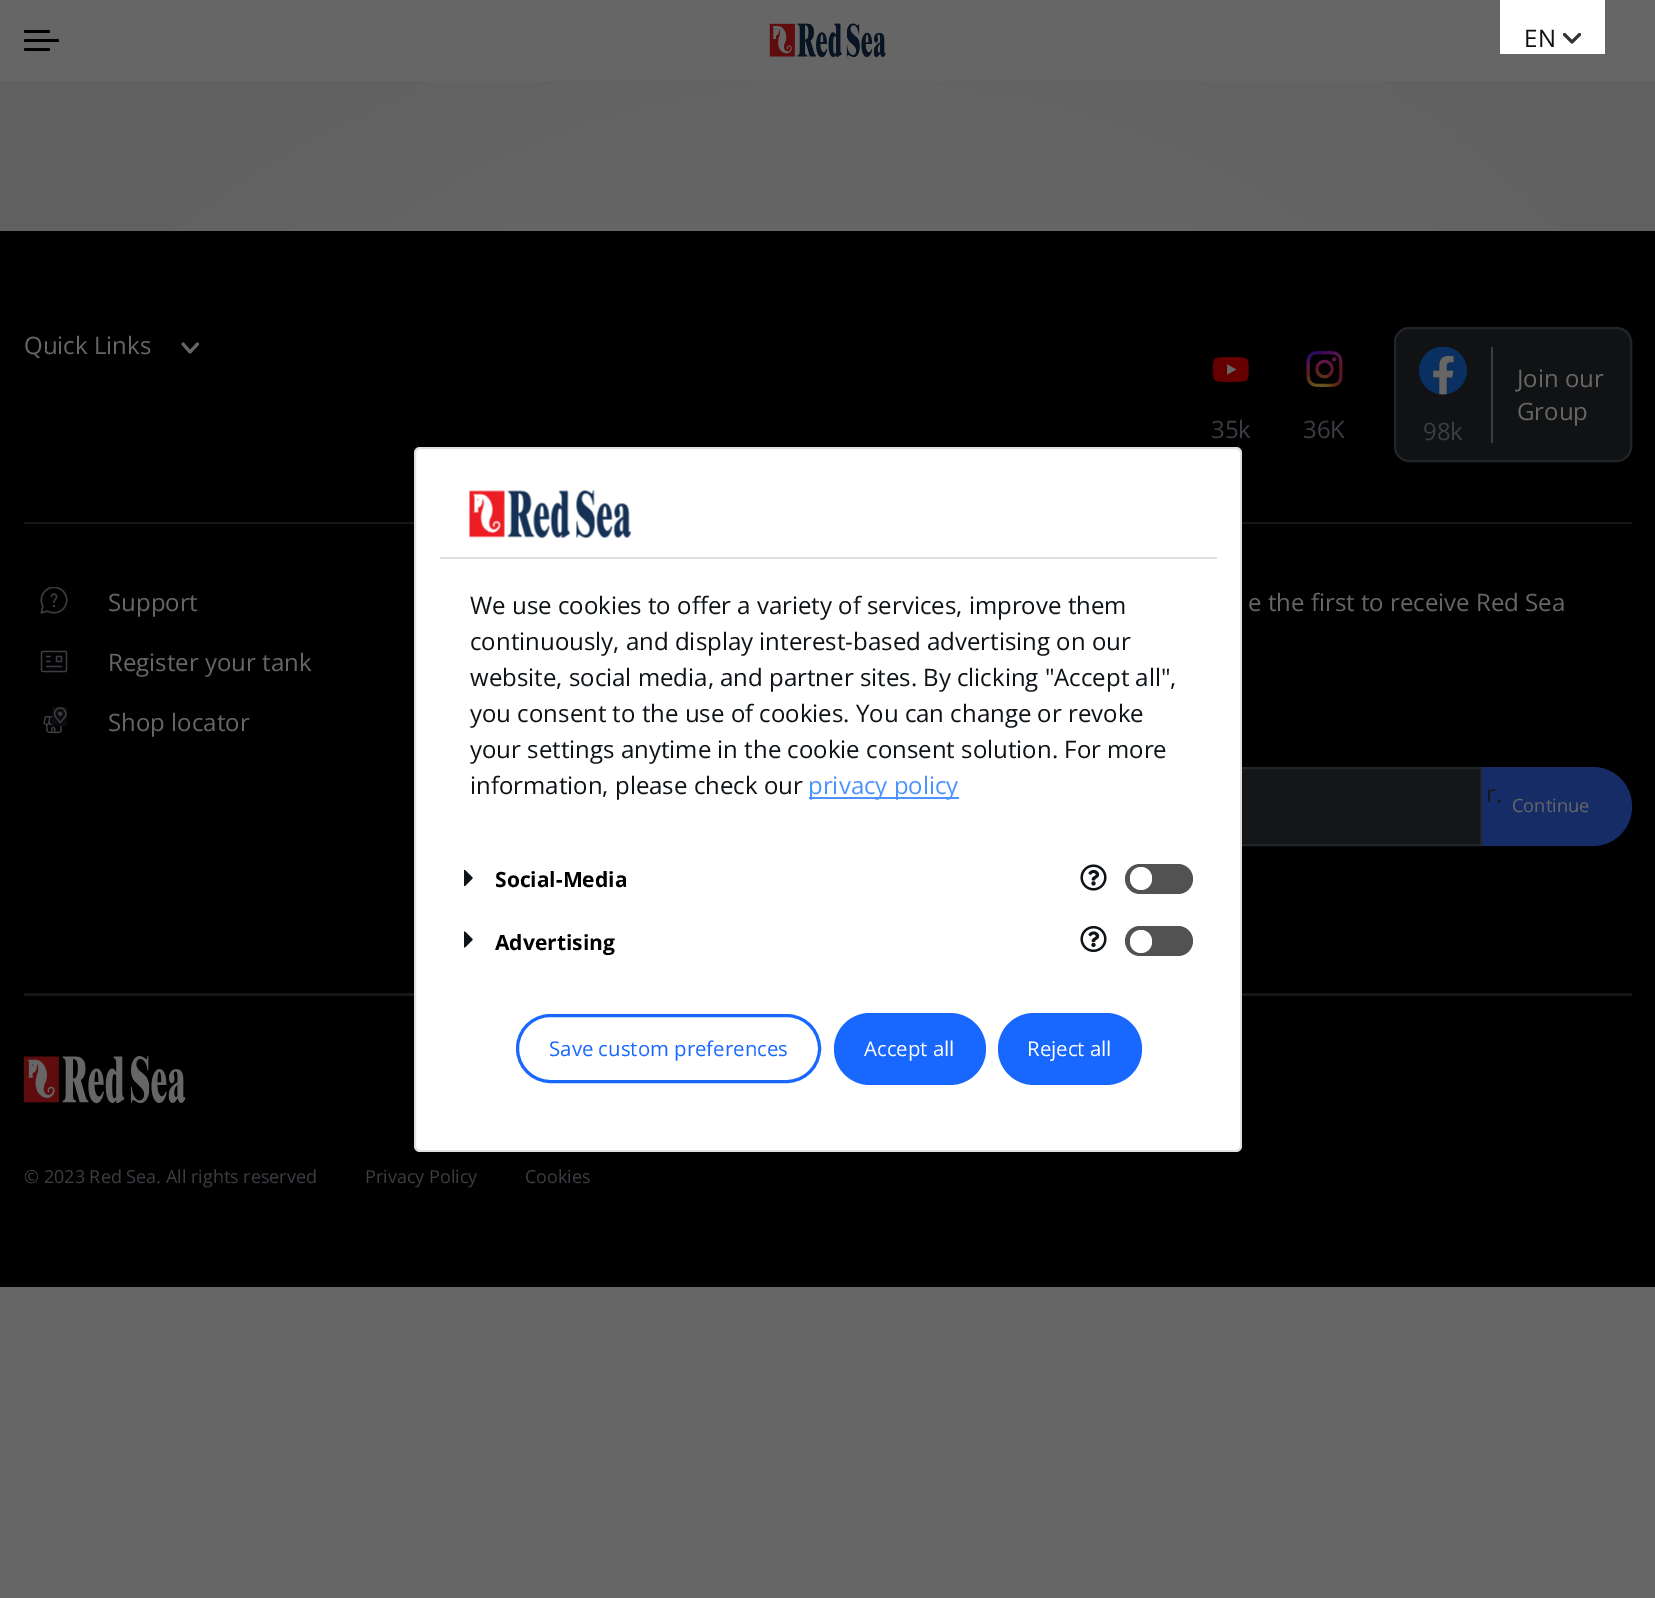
%!PS
<< /PageSize [1655 1598] /PageUsesTransparency true >> setpagedevice
/rgb { dup -16 bitshift 255 div exch dup -8 bitshift 255 and 255 div exch 255 and 255 div setrgbcolor } def
/font { [ exch dup neg 0 0 3 -1 roll 0 0 ] selectfont } def
/text { moveto show } def
/alpha { dup .setfillconstantalpha .setstrokeconstantalpha } def
/roundrect { 5 dict begin { /r /h /w /y /x } { exch def } forall
  x r add y moveto x w add y 2 copy h add r arct x w add y h add x 1 index r arct
  x y h add x y r arct x y 2 copy exch w add exch r arct closepath end } def
/picture { 5 dict begin { /h /w /y /x /name } { exch def } forall
  gsave x y translate w h scale
  w h 8 [w 0 0 h 0 0] name (r) file false 3 colorimage grestore end } def
0 .pushpdf14devicefilter
0 1598 translate 1 -1 scale
4 setmiterlimit
/s1 { /OpenSans-Regular 24 font 16#666666 rgb } def
/s2 { /OpenSans-Regular 24 font 16#3A3E42 rgb } def
/s3 { /OpenSans-Regular 18.25 font 16#666666 rgb } def
/s4 { /OpenSans-Regular 24 font 16#14181E rgb } def
/s5 { /OpenSans-Regular 18 font 16#3A3E42 rgb } def
/s6 { /OpenSans-Regular 24 font 16#0E1317 rgb } def
/s7 { /OpenSans-Regular 24 font 16#4B93FF rgb } def
/s8 { /OpenSans-Bold 21 font 16#000000 rgb } def
/s9 { /OpenSans-Regular 20.4 font 16#1867FF rgb } def
/s10 { /OpenSans-Regular 20.4 font 16#FFFFFF rgb } def
16#666666 rgb
0 0 1655 1598 rectfill
16#616161 rgb
0 81 1655 150 rectfill
(pic1.raw) 142 81 1449 150 picture
16#000000 rgb
24 30 26 3 1.5 roundrect fill
24 39 35 3 1.5 roundrect fill
24 48 26 3 1.5 roundrect fill
(pic2.raw) 769 23 117 35 picture
16#FFFFFF rgb
1500 0 105 54 rectfill
16#333333 rgb
3 setlinewidth
1 setlinecap
1 setlinejoin
1579.5 34.5 moveto 1572 42 lineto 1564.5 34.5 lineto stroke
/OpenSans-Regular 24 font
16#0E1317 rgb
1524 47 moveto 1 0 (EN) ashow
16#000000 rgb
0 231 1655 1056 rectfill
s1
(Quick Links) 24 354 text
197.5 344 moveto 190 352 lineto 183 344 lineto stroke
(pic3.raw) 1212 357 37 25 picture
s2
(35k) 1211 438 text
(pic4.raw) 1306 351 37 36 picture
(36K) 1303 438 text
16#101214 rgb
1395 328 236 133 14 roundrect gsave fill grestore
16#222528 rgb
2 setlinewidth
0 setlinecap
0 setlinejoin
stroke
16#3A3E42 rgb
1491 347 2 96 rectfill
s1
(Join our) 1517 387 text
(Group) 1517 420 text
(pic5.raw) 1419 347 48 48 picture
s2
(98k) 1423 440 text
16#14171A rgb
24 522 1608 2 rectfill
(pic6.raw) 40 587 28 27 picture
s1
(Support) 108 611 text
(pic7.raw) 40 650 28 23 picture
(Register your tank) 108 671 text
(pic8.raw) 43 707 24 27 picture
(Shop locator) 108 731 text
(e the first to receive Red Sea) 1248 611 text
16#14171A rgb
1242 769 238 75 rectfill
16#222528 rgb
1098 768 383 77 rectstroke
16#162C66 rgb
1482 767 moveto 1592.5 767 lineto 1614.5 767 1632 784.5 1632 806.5 curveto 1632 828.5 1614.5 846 1592.5 846 curveto 1482 846 lineto closepath fill
s3
(Continue) 1512 812 text
s4
(r.) 1486 802 text
16#14171A rgb
24 993 1608 3 rectfill
(pic9.raw) 24 1056 162 48 picture
s5
(© 2023 Red Sea. All rights reserved) 24 1183 text
(Privacy Policy) 365 1183 text
(Cookies) 525 1183 text
16#FFFFFF rgb
414 447 828 705 6 roundrect fill
0.12 alpha
16#000000 rgb
415 448 826 703 5 roundrect stroke
1 alpha
16#DFDFDF rgb
440 557 777 2 rectfill
(pic10.raw) 469 490 163 49 picture
s6
(We use cookies to offer a variety of services, improve them) 470 614 text
(continuously, and display interest-based advertising on our) 470 650 text
(website, social media, and partner sites. By clicking "Accept all",) 470 686 text
(you consent to the use of cookies. You can change or revoke) 470 722 text
(your settings anytime in the cookie consent solution. For more) 470 758 text
(information, please check our) 470 794 text
16#4B93FF rgb
809 797 150 2 rectfill
(privacy policy) 808 794 text
(pic11.raw) 464 869 9 18 picture
s8
(Social-Media) 495 887 text
(pic12.raw) 1080 864 27 27 picture
16#525252 rgb
1125 864 68 30 15 roundrect fill
16#FFFFFF rgb
1130 867 22 23 11 roundrect fill
(pic13.raw) 464 931 9 17 picture
s8
(Advertising) 495 950 text
(pic14.raw) 1080 926 27 27 picture
16#525252 rgb
1125 926 68 30 15 roundrect fill
16#FFFFFF rgb
1130 930 22 23 11 roundrect fill
16#1867FF rgb
3 setlinewidth
517.5 1015.5 302 66 33 roundrect stroke
s9
(Save custom preferences) 549 1056 text
834 1013 152 72 36 roundrect fill
s10
(Accept all) 864 1056 text
16#1867FF rgb
998 1013 144 72 36 roundrect fill
s10
(Reject all) 1027 1056 text
.poppdf14devicefilter showpage
